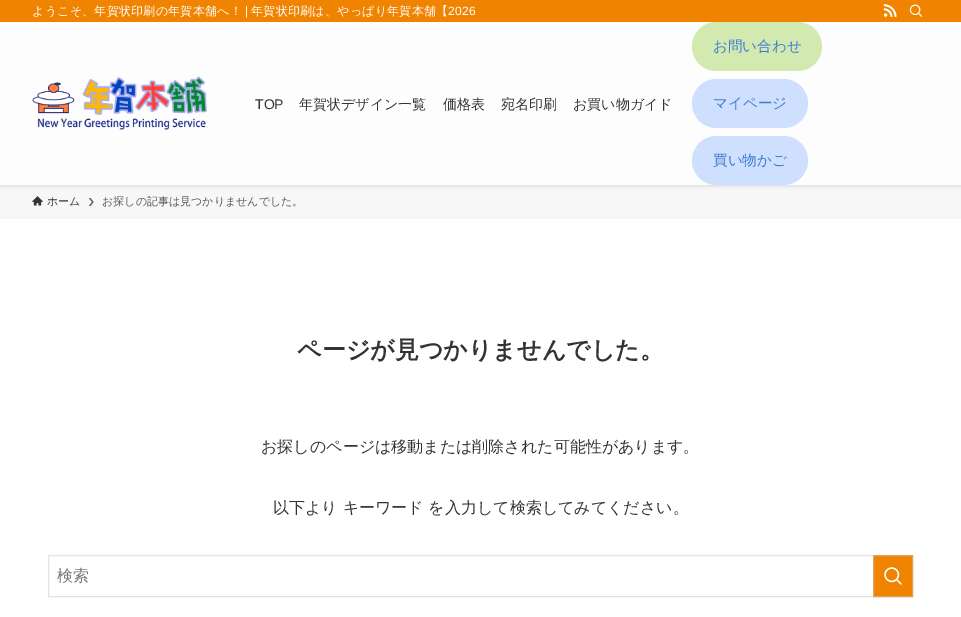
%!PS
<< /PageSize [961 617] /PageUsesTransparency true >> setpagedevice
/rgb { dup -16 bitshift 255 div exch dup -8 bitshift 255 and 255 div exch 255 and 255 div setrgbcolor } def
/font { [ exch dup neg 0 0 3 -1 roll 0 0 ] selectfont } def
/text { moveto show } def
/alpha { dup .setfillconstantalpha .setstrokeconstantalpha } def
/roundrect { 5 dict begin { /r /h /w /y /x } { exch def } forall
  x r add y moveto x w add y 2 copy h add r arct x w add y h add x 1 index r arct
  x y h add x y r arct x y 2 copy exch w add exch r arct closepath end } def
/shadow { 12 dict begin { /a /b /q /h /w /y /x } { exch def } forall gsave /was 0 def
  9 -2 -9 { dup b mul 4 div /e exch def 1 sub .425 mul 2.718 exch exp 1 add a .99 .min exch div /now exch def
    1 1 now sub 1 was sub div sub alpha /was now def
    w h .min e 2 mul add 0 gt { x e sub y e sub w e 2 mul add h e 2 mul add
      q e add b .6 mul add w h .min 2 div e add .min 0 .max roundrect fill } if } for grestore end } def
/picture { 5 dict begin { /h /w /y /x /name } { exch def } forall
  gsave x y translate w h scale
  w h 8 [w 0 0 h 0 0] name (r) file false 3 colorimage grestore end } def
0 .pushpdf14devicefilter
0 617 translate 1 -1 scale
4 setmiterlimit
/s1 { /LiberationSans-Regular 14 font 16#333333 rgb } def
/s2 { /WenQuanYiZenHei-Medium 14 font 16#333333 rgb } def
/s3 { /WenQuanYiZenHei-Medium 14.5 font 16#3D79D5 rgb } def
/s4 { /WenQuanYiZenHei-Medium 11 font 16#333333 rgb } def
/s5 { /WenQuanYiZenHei-Medium 11 font 16#5A5A5A rgb } def
/s6 { /WenQuanYiZenHei-Bold 24 font 16#333333 rgb } def
/s7 { /WenQuanYiZenHei-Medium 16 font 16#333333 rgb } def
/s8 { /WenQuanYiZenHei-Medium 16 font 16#757575 rgb } def
16#FFFFFF rgb
0 0 961 617 rectfill
16#F7F7F7 rgb
0 185 961 34 rectfill
16#000000 rgb
0 1 961 185 0 2 0.12 shadow
16#FDFDFD rgb
0 22 961 163 rectfill
16#F08300 rgb
0 0 961 22 rectfill
/WenQuanYiZenHei-Medium 12 font
16#FFFFFF rgb
32 15 moveto 0.25 0 (ようこそ、年賀状印刷の年賀本舗へ！) ashow
/LiberationSans-Regular 12 font
245 15 moveto 0.25 0 (|) ashow
/WenQuanYiZenHei-Medium 12 font
251 15 moveto 0.25 0 (年賀状印刷は、やっぱり年賀本舗【) ashow
/LiberationSans-Regular 12 font
448 15 moveto 0.25 0 (2026) ashow
(pic1.raw) 883 4 14 13 picture
(pic2.raw) 909 4 14 13 picture
(pic3.raw) 32 76 175 54 picture
s1
(TOP) 255 109 text
s2
(年賀状デザイン一覧) 299 109 text
(価格表) 443 109 text
(宛名印刷) 501 109 text
(お買い物ガイド) 573 109 text
16#D2EAB0 rgb
692 22 130 49 24.5 roundrect fill
s3
(お問い合わせ) 713 51 text
16#CFDFFE rgb
692 79 116 49 24.5 roundrect fill
s3
(マイページ) 713 108 text
16#CFDFFE rgb
692 136 116 49 24.5 roundrect fill
s3
(買い物かご) 713 165 text
(pic4.raw) 32 196 11 10 picture
s4
(ホーム) 47 205 text
16#5A5A5A rgb
90.5 198 moveto 89 198 lineto 92 202 lineto 89 206 lineto 90.5 206 lineto 93.5 202 lineto closepath fill
(お探しの記事は見つかりませんでした。) 102 205 text
s6
(ページが見つかりませんでした。) 297 358 text
s7
(お探しのページは移動または削除された可能性があります。) 261 452 text
(以下より キーワード を入力して検索してみてください。) 273 513 text
16#E3E3E3 rgb
48.5 555.5 864 41 rectstroke
s8
(検索) 57 581 text
16#F08300 rgb
873.5 555.5 moveto 912.5 555.5 lineto 912.5 596.5 lineto 873.5 596.5 lineto closepath gsave fill grestore
16#DCA564 rgb
stroke
(pic5.raw) 884 567 18 18 picture
.poppdf14devicefilter showpage
